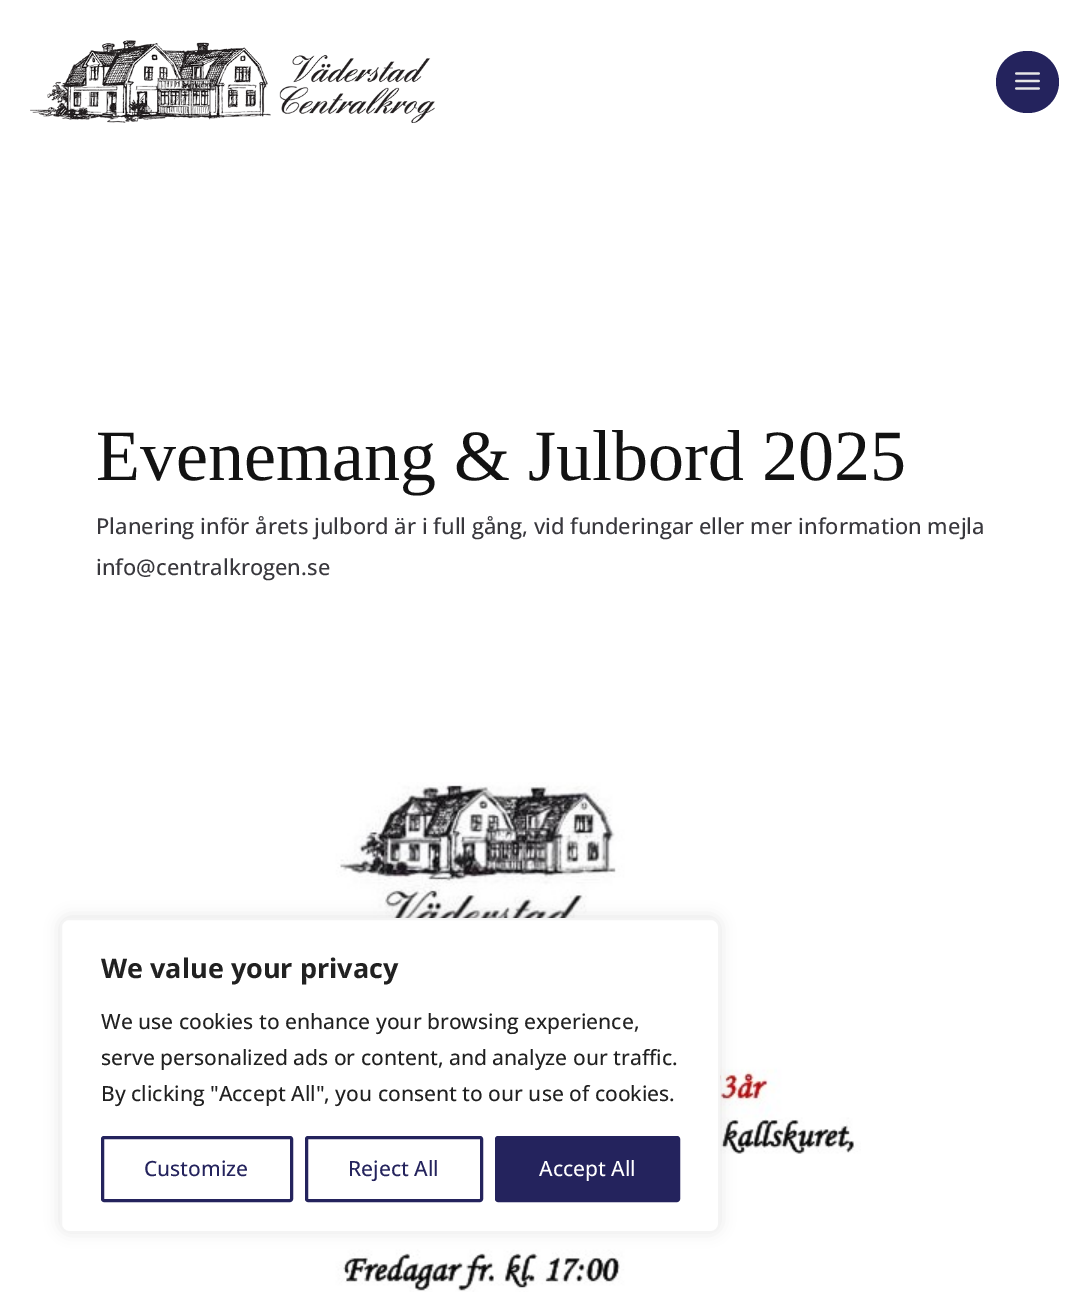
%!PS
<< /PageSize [1089 1292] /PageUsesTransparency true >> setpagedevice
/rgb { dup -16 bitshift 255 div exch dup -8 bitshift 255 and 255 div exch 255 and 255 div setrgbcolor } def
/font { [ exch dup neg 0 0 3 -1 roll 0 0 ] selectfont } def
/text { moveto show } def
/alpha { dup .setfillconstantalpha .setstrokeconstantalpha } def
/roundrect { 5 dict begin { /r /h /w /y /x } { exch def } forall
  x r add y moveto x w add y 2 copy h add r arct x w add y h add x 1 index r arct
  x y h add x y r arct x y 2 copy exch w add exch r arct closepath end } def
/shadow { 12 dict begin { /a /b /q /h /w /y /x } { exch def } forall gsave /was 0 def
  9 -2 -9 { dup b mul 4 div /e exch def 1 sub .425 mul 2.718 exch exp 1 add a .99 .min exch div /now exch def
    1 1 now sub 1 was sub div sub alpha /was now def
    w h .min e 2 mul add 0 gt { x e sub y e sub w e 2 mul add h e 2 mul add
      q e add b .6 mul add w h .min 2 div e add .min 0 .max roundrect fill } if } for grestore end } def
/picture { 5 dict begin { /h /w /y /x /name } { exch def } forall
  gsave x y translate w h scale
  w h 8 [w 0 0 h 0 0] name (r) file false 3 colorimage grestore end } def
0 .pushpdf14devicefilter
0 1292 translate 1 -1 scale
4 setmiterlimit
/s1 { /LiberationSerif-Regular 72 font 16#121212 rgb } def
/s2 { /OpenSans-Medium 21.9 font 16#39383D rgb } def
/s3 { /OpenSans-Bold 27 font 16#212121 rgb } def
/s4 { /OpenSans-Medium 21 font 16#212121 rgb } def
/s5 { /OpenSans-Medium 21 font 16#24235D rgb } def
/s6 { /OpenSans-Medium 21 font 16#FFFFFF rgb } def
16#FFFFFF rgb
0 0 1089 1292 rectfill
(pic1.raw) 30 40 405 83 picture
16#24235D rgb
996 51 63 62 31 roundrect fill
(pic2.raw) 1015 72 25 18 picture
s1
(Evenemang & Julbord 2025) 96 480 text
s2
(Planering inför årets julbord är i full gång, vid funderingar eller mer information mejla) 96 534 text
(info@centralkrogen.se) 96 575 text
(pic3.raw) 98 782 763 510 picture
16#ACABAB rgb
60 917 660 315 9 7.5 0.3 shadow
16#FFFFFF rgb
61 919 658 313 8 roundrect gsave fill grestore
16#F4F4F4 rgb
2 setlinewidth
stroke
s3
(We value your privacy) 101 978 text
s4
(We use cookies to enhance your browsing experience,) 101 1029 text
(serve personalized ads or content, and analyze our traffic.) 101 1065 text
(By clicking "Accept All", you consent to our use of cookies.) 101 1101 text
16#24235D rgb
3 setlinewidth
102.5 1137.5 189 63 1.5 roundrect stroke
(Customize) 144 1176 text
306.5 1137.5 175 63 1.5 roundrect stroke
(Reject All) 348 1176 text
496.5 1137.5 182 63 1.5 roundrect gsave fill grestore
stroke
s6
(Accept All) 539 1176 text
.poppdf14devicefilter showpage
